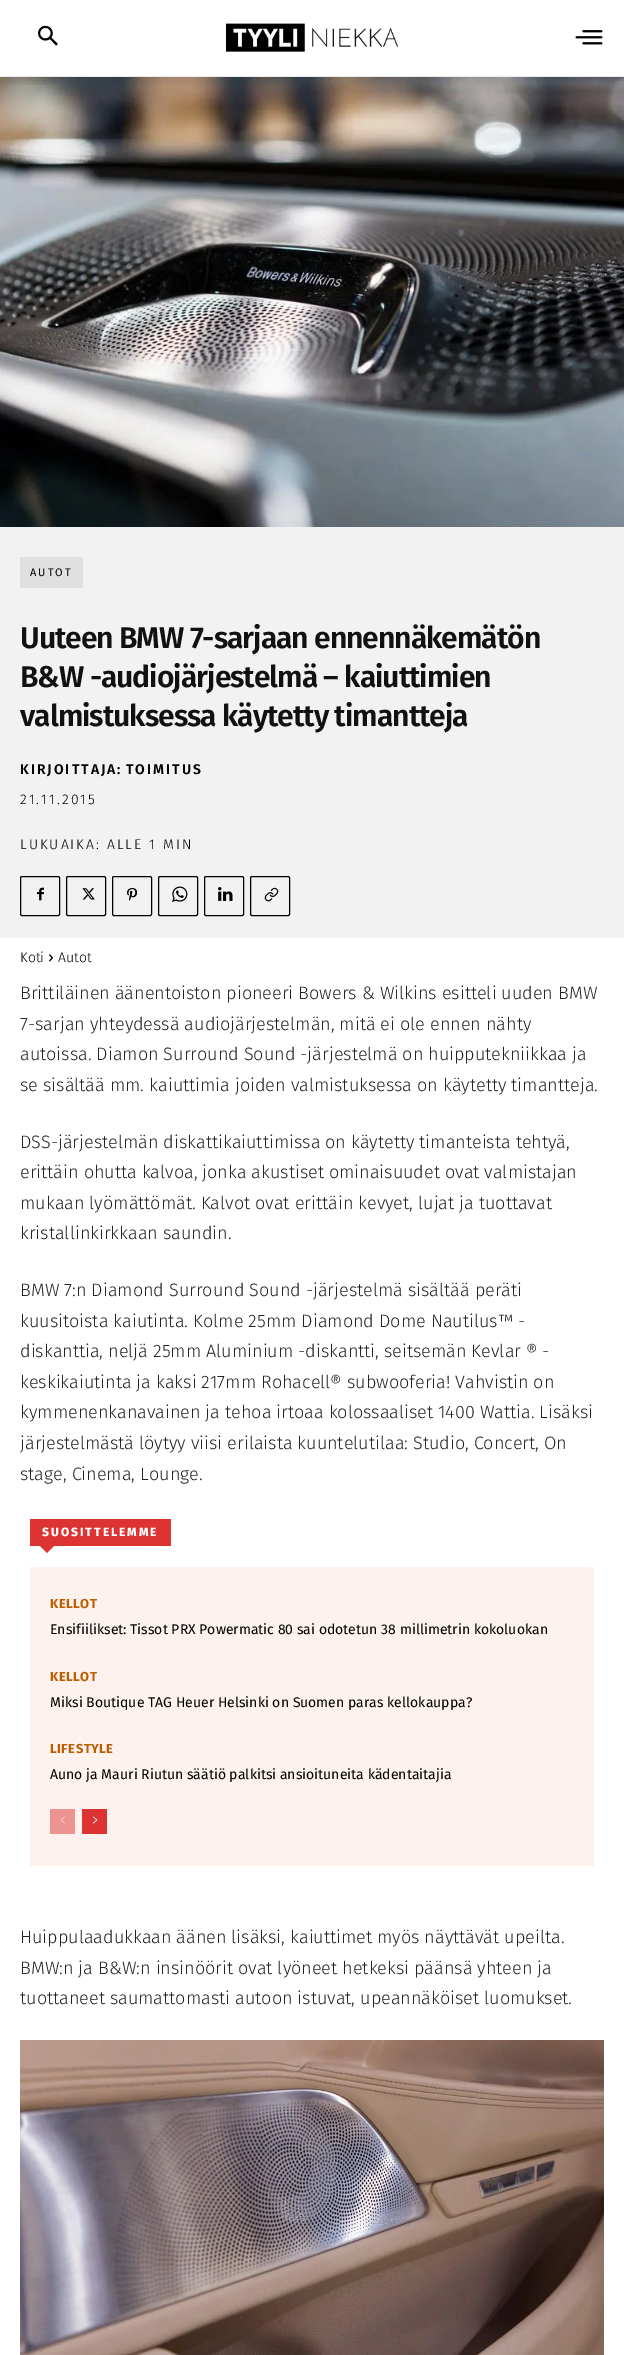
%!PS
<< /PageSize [624 2355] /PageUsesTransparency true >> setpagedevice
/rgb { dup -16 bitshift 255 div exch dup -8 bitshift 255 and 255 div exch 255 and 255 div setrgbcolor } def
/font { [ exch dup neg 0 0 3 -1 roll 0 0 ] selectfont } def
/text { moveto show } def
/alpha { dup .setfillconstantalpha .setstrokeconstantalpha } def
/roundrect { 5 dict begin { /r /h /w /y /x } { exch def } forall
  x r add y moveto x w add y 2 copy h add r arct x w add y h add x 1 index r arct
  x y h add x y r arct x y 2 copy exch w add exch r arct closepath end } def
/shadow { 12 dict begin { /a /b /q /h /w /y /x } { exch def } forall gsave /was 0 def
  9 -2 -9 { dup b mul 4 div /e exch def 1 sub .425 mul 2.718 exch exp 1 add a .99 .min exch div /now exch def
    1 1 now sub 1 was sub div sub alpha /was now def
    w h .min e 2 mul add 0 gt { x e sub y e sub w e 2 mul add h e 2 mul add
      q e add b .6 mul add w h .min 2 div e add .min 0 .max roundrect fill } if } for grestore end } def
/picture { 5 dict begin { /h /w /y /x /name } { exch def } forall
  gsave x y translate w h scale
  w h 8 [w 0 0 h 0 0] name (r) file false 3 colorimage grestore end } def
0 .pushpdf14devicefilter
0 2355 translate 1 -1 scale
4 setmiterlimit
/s1 { /FiraSans-Light 14 font 16#000000 rgb } def
/s2 { /FiraSans-Light 18 font 16#222222 rgb } def
/s3 { /FiraSans-Regular 14 font 16#000000 rgb } def
16#FFFFFF rgb
0 0 624 2355 rectfill
(pic1.raw) 38 25 20 21 picture
(pic2.raw) 226 23 172 29 picture
(pic3.raw) 575 30 28 15 picture
(pic4.raw) 0 77 624 450 picture
gsave
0 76 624 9 rectclip
16#000000 rgb
0 6 624 76 0 4 0.08 shadow
grestore
16#F2F2F2 rgb
0 527 624 411 rectfill
16#E0E0E0 rgb
20 557 63 31 rectfill
/FiraSans-Regular 11 font
16#000000 rgb
30 576 moveto 2 0 (AUTOT) ashow
/FiraSans-SemiBold 30 font
16#111111 rgb
20 648 moveto -1 0 (Uuteen BMW 7-sarjaan ennennäkemätön) ashow
20 687 moveto -1 0 (B&W -audiojärjestelmä – kaiuttimien) ashow
20 726 moveto -1 0 (valmistuksessa käytetty timantteja) ashow
/FiraSans-SemiBold 14 font
16#000000 rgb
20 774 moveto 2 0 (KIRJOITTAJA:) ashow
126 774 moveto 2 0 (TOIMITUS) ashow
/FiraSans-Light 14 font
20 804 moveto 2 0 (21.11.2015) ashow
20 849 moveto 2 0 (LUKUAIKA: ALLE 1 MIN) ashow
20.5 876.5 39 39 1.5 roundrect stroke
(pic5.raw) 37 887 7 14 picture
66.5 876.5 39 39 1.5 roundrect stroke
(pic6.raw) 82 888 13 12 picture
112.5 876.5 39 39 1.5 roundrect stroke
(pic7.raw) 127 887 11 14 picture
158.5 876.5 39 39 1.5 roundrect stroke
(pic8.raw) 172 886 16 16 picture
204.5 876.5 39 39 1.5 roundrect stroke
(pic9.raw) 218 887 15 14 picture
250.5 876.5 39 39 1.5 roundrect stroke
(pic10.raw) 264 887 15 15 picture
(Koti) 20 962 text
(pic11.raw) 49 954 4 8 picture
(Autot) 58 962 text
s2
(Brittiläinen äänentoiston pioneeri Bowers & Wilkins esitteli uuden BMW) 20 999 text
(7-sarjan yhteydessä audiojärjestelmän, mitä ei ole ennen nähty) 20 1030 text
(autoissa. Diamon Surround Sound -järjestelmä on huipputekniikkaa ja) 20 1060 text
(se sisältää mm. kaiuttimia joiden valmistuksessa on käytetty timantteja.) 20 1091 text
(DSS-järjestelmän diskattikaiuttimissa on käytetty timanteista tehtyä,) 20 1148 text
(erittäin ohutta kalvoa, jonka akustiset ominaisuudet ovat valmistajan) 20 1178 text
(mukaan lyömättömät. Kalvot ovat erittäin kevyet, lujat ja tuottavat) 20 1209 text
(kristallinkirkkaan saundin.) 20 1239 text
(BMW 7:n Diamond Surround Sound -järjestelmä sisältää peräti) 20 1296 text
(kuusitoista kaiutinta. Kolme 25mm Diamond Dome Nautilus™ -) 20 1327 text
(diskanttia, neljä 25mm Aluminium -diskantti, seitsemän Kevlar ® -) 20 1357 text
(keskikaiutinta ja kaksi 217mm Rohacell® subwooferia! Vahvistin on) 20 1388 text
(kymmenenkanavainen ja tehoa irtoaa kolossaaliset 1400 Wattia. Lisäksi) 20 1418 text
(järjestelmästä löytyy viisi erilaista kuuntelutilaa: Studio, Concert, On) 20 1449 text
(stage, Cinema, Lounge.) 20 1480 text
16#DD3333 rgb
30 1519 141 27 rectfill
/FiraSans-ExtraBold 12 font
16#FFFFFF rgb
42 1536 moveto 2 0 (SUOSITTELEMME) ashow
16#DD3333 rgb
40 1546 moveto 54 1546 lineto 47 1553 lineto closepath fill
16#FDF2ED rgb
30 1567 564 299 rectfill
/FiraSans-Bold 13 font
16#BC5E00 rgb
50 1608 moveto 0.5 0 (KELLOT) ashow
s3
(Ensifiilikset: Tissot PRX Powermatic 80 sai odotetun 38 millimetrin kokoluokan) 50 1634 text
/FiraSans-Bold 13 font
16#BC5E00 rgb
50 1681 moveto 0.5 0 (KELLOT) ashow
s3
(Miksi Boutique TAG Heuer Helsinki on Suomen paras kellokauppa?) 50 1707 text
/FiraSans-Bold 13 font
16#BC5E00 rgb
50 1753 moveto 0.5 0 (LIFESTYLE) ashow
s3
(Auno ja Mauri Riutun säätiö palkitsi ansioituneita kädentaitajia) 50 1779 text
16#ED9390 rgb
50 1809 25 25 rectfill
(pic12.raw) 60 1816 5 8 picture
16#DD3333 rgb
82 1809 25 25 rectfill
(pic13.raw) 93 1816 5 8 picture
s2
(Huippulaadukkaan äänen lisäksi, kaiuttimet myös näyttävät upeilta.) 20 1943 text
(BMW:n ja B&W:n insinöörit ovat lyöneet hetkeksi päänsä yhteen ja) 20 1974 text
(tuottaneet saumattomasti autoon istuvat, upeannäköiset luomukset.) 20 2004 text
(pic14.raw) 20 2040 584 315 picture
.poppdf14devicefilter showpage
